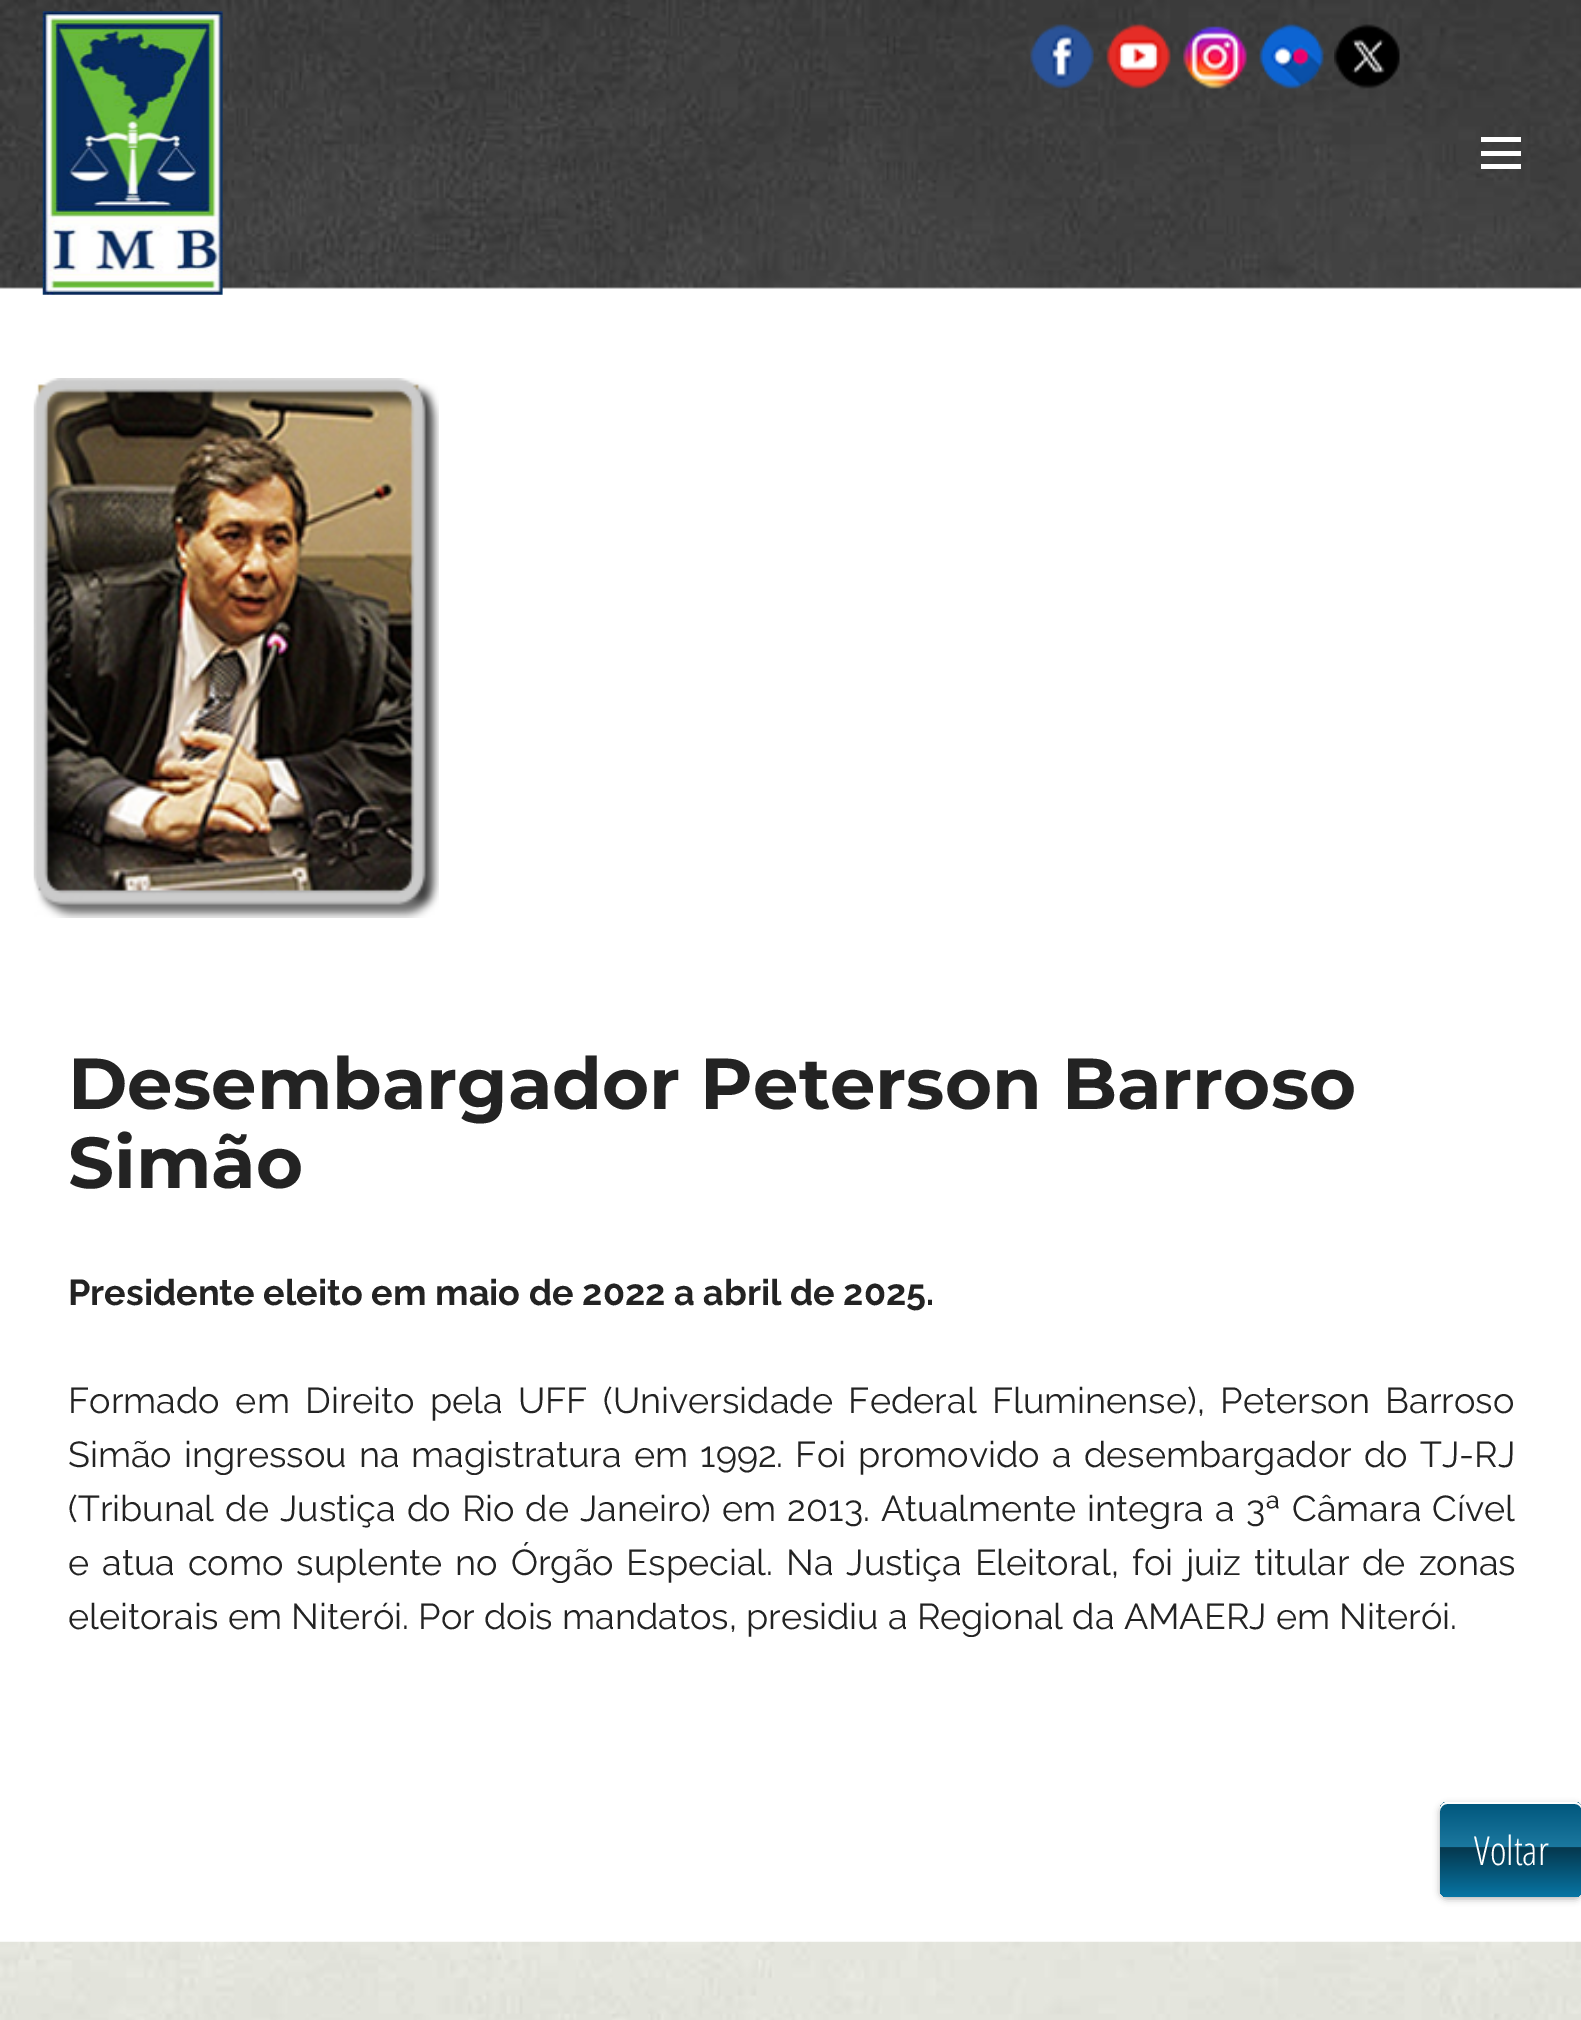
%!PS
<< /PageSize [1581 2020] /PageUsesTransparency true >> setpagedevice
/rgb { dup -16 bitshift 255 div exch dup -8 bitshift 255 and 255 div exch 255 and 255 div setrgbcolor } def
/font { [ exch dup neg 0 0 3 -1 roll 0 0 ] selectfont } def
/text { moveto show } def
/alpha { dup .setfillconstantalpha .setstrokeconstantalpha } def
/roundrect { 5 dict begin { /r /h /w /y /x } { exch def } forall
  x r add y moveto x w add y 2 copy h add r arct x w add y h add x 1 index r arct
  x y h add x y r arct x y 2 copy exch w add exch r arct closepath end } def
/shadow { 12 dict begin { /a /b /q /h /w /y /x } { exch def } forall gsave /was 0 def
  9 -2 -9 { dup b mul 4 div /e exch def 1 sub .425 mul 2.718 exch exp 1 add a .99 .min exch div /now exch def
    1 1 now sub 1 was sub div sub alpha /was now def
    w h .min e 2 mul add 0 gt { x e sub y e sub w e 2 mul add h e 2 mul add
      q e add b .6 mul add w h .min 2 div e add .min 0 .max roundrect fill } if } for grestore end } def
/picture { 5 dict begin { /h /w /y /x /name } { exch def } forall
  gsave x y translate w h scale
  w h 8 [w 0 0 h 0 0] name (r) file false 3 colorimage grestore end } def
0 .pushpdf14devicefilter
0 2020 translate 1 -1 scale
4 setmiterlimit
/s1 { /Montserrat-Bold 72 font 16#232323 rgb } def
/s2 { /Raleway-Bold 36 font 16#232323 rgb } def
/s3 { /Raleway-Regular 36 font 16#232323 rgb } def
/s4 { /OpenSansCondensed-Light 40 font 16#FFFFFF rgb } def
16#FFFFFF rgb
0 0 1581 2020 rectfill
(pic1.raw) 0 0 1581 289 picture
(pic2.raw) 42 11 181 284 picture
(pic3.raw) 1030 24 64 65 picture
(pic4.raw) 1106 23 65 66 picture
(pic5.raw) 1183 26 65 63 picture
(pic6.raw) 1259 23 65 66 picture
(pic7.raw) 1334 24 66 65 picture
1481 164 40 5 rectfill
1481 151 40 5 rectfill
1481 137 40 5 rectfill
(pic8.raw) 33 378 406 540 picture
s1
(Desembargador Peterson Barroso) 68 1109 text
(Simão) 68 1188 text
s2
(Presidente eleito em maio de 2022 a abril de 2025.) 68 1305 text
/Raleway-Regular 36 font
68 1413 moveto 6.5 0 32 (Formado em Direito pela UFF \(Universidade Federal Fluminense\), Peterson Barroso) widthshow
68 1467 moveto 3 0 32 (Simão ingressou na magistratura em 1992. Foi promovido a desembargador do TJ-RJ) widthshow
68 1521 moveto 2 0 32 (\(Tribunal de Justiça do Rio de Janeiro\) em 2013. Atualmente integra a 3ª Câmara Cível) widthshow
68 1575 moveto 3.75 0 32 (e atua como suplente no Órgão Especial. Na Justiça Eleitoral, foi juiz titular de zonas) widthshow
(eleitorais em Niterói. Por dois mandatos, presidiu a Regional da AMAERJ em Niterói.) 68 1629 text
16#000000 rgb
1440 1805 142 94 7 3.5 0.3 shadow
gsave 1440 1802 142 95 7 roundrect clip newpath
<< /ShadingType 2 /ColorSpace /DeviceRGB /Coords [1511 1802 1511 1897] /Extend [true true] /Function << /FunctionType 3 /Domain [0 1] /Functions [<< /FunctionType 2 /Domain [0 1] /C0 [0 0.337 0.482] /C1 [0.106 0.471 0.627] /N 1 >> << /FunctionType 2 /Domain [0 1] /C0 [0.106 0.471 0.627] /C1 [0.02 0.22 0.306] /N 1 >> << /FunctionType 2 /Domain [0 1] /C0 [0.02 0.22 0.306] /C1 [0.027 0.459 0.643] /N 1 >>] /Bounds [0.47 0.48] /Encode [0 1 0 1 0 1] >> >> shfill grestore
16#FFFFFF rgb
1447 1804 moveto 1575 1804 lineto 1579 1804 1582 1808 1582 1811 curveto 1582 1809 lineto 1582 1805 1579 1802 1575 1802 curveto 1447 1802 lineto 1443 1802 1440 1805 1440 1809 curveto 1440 1811 lineto 1440 1808 1443 1804 1447 1804 curveto closepath fill
s4
(Voltar) 1474 1865 text
(pic9.raw) 0 1941 1581 79 picture
.poppdf14devicefilter showpage
